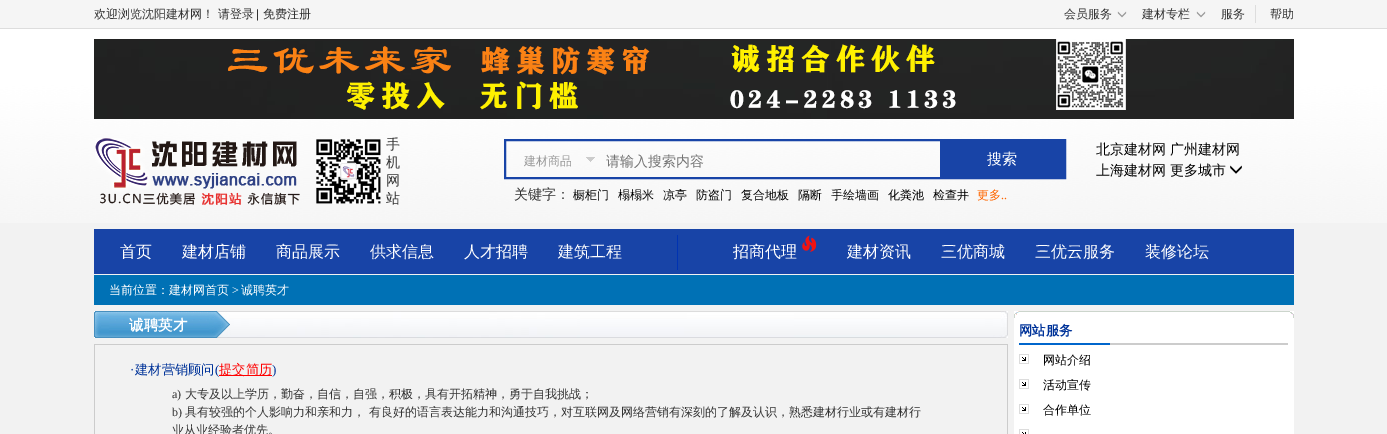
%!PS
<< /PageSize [1387 434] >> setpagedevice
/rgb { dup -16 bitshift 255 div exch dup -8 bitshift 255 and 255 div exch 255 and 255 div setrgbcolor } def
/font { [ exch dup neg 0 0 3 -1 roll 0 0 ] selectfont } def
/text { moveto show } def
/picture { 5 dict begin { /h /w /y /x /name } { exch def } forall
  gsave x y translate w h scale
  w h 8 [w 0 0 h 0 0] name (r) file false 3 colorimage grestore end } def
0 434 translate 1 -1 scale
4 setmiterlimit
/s1 { /WenQuanYiZenHei-Medium 12 font 16#333333 rgb } def
/s2 { /LiberationSans-Regular 12 font 16#333333 rgb } def
/s3 { /WenQuanYiZenHei-Medium 14 font 16#333333 rgb } def
/s4 { /WenQuanYiZenHei-Medium 12 font 16#999999 rgb } def
/s5 { /WenQuanYiZenHei-Medium 14 font 16#757575 rgb } def
/s6 { /WenQuanYiZenHei-Medium 15 font 16#FFFFFF rgb } def
/s7 { /WenQuanYiZenHei-Medium 12 font 16#000000 rgb } def
/s8 { /WenQuanYiZenHei-Medium 12 font 16#FF6600 rgb } def
/s9 { /LiberationSerif-Regular 12 font 16#FF6600 rgb } def
/s10 { /WenQuanYiZenHei-Medium 14 font 16#000000 rgb } def
/s11 { /WenQuanYiZenHei-Medium 16 font 16#FFFFFF rgb } def
/s12 { /WenQuanYiZenHei-Medium 12 font 16#FFFFFF rgb } def
/s13 { /LiberationSerif-Regular 12 font 16#FFFFFF rgb } def
/s14 { /WenQuanYiZenHei-Bold 14.5 font 16#FFFFFF rgb } def
/s15 { /LiberationSerif-Regular 13.25 font 16#003399 rgb } def
/s16 { /WenQuanYiZenHei-Medium 13.25 font 16#003399 rgb } def
/s17 { /WenQuanYiZenHei-Medium 13.25 font 16#FF0000 rgb } def
/s18 { /LiberationSerif-Regular 12 font 16#333333 rgb } def
/s19 { /WenQuanYiZenHei-Bold 13.25 font 16#003399 rgb } def
16#F2F2F2 rgb
0 0 1387 434 rectfill
16#F5F5F5 rgb
0 0 1387 28 rectfill
16#DDDDDD rgb
0 28 1387 1 rectfill
s1
(欢迎浏览沈阳建材网！ 请登录) 94 18 text
s2
(|) 256 18 text
s1
(免费注册) 263 18 text
(会员服务) 1064 18 text
(pic1.raw) 1117 11 10 7 picture
(建材专栏) 1142 18 text
(pic1.raw) 1196 11 10 7 picture
16#DDDDDD rgb
1255 5 1 18 rectfill
s1
(服务) 1221 18 text
(帮助) 1270 18 text
(pic8.raw) 0 29 1387 194 picture
(pic2.raw) 94 39 1200 80 picture
(pic3.raw) 95 138 205 67 picture
(pic4.raw) 316 139 65 65 picture
s3
(手) 386 149 text
(机) 386 167 text
(网) 386 185 text
(站) 386 203 text
16#1844A7 rgb
2 setlinewidth
505 140 560 38 rectstroke
(pic5.raw) 586 157 9 5 picture
s4
(建材商品) 524 165 text
s5
(请输入搜索内容) 606 166 text
16#1844A7 rgb
940 141 124 36 rectfill
s6
(搜索) 987 164 text
s3
(关键字：) 514 199 text
s7
(橱柜门) 573 199 text
(榻榻米) 618 199 text
(凉亭) 663 199 text
(防盗门) 696 199 text
(复合地板) 741 199 text
(隔断) 798 199 text
(手绘墙画) 831 199 text
(化粪池) 888 199 text
(检查井) 933 199 text
s8
(更多) 977 199 text
s9
(..) 1001 199 text
s10
(北京建材网) 1096 154 text
(广州建材网) 1170 154 text
(上海建材网) 1096 175 text
(更多城市) 1170 175 text
(pic6.raw) 1230 165 12 9 picture
16#1844A7 rgb
94 229 1200 45 rectfill
s11
(首页) 120 257 text
(建材店铺) 182 257 text
(商品展示) 276 257 text
(供求信息) 370 257 text
(人才招聘) 464 257 text
(建筑工程) 558 257 text
16#0033B2 rgb
677 235 1 35 rectfill
s11
(招商代理) 733 257 text
(pic7.raw) 802 235 15 17 picture
(建材资讯) 847 257 text
(三优商城) 941 257 text
(三优云服务) 1035 257 text
(装修论坛) 1145 257 text
16#0071B5 rgb
94 275 1200 30 rectfill
s12
(当前位置：建材网首页) 109 294 text
s13
(>) 232 294 text
s12
(诚聘英才) 241 294 text
(pic9.raw) 104 311 904 27 picture
(pic10.raw) 94 311 10 27 picture
(pic11.raw) 109 311 100 27 picture
s14
(诚聘英才) 129 330 text
(pic12.raw) 209 311 25 27 picture
16#CCCCCC rgb
94 344 914 1 rectfill
1007 344 1 90 rectfill
94 344 1 90 rectfill
s15
(·) 130 374 text
s16
(建材营销顾问) 135 374 text
s15
(\() 215 374 text
16#FF0000 rgb
219 375 53 1 rectfill
s17
(提交简历) 219 374 text
s15
(\)) 272 374 text
s18
(a\)) 172 398 text
s1
(大专及以上学历，勤奋，自信，自强，积极，具有开拓精神，勇于自我挑战；) 185 398 text
s18
(b\)) 172 416 text
s1
(具有较强的个人影响力和亲和力， 有良好的语言表达能力和沟通技巧，对互联网及网络营销有深刻的了解及认识，熟悉建材行业或有建材行) 185 416 text
(业从业经验者优先。) 172 434 text
(pic13.raw) 1014 311 280 7 picture
16#FFFFFF rgb
1014 318 280 116 rectfill
s19
(网站服务) 1019 335 text
16#0066CC rgb
1019 343 91 2 rectfill
16#CCCCCC rgb
1110 343 178 2 rectfill
(pic14.raw) 1019 354 10 10 picture
s7
(网站介绍) 1043 364 text
(pic14.raw) 1019 379 10 10 picture
(活动宣传) 1043 389 text
(pic14.raw) 1019 404 10 10 picture
(合作单位) 1043 414 text
(pic15.raw) 1019 429 10 5 picture
showpage
